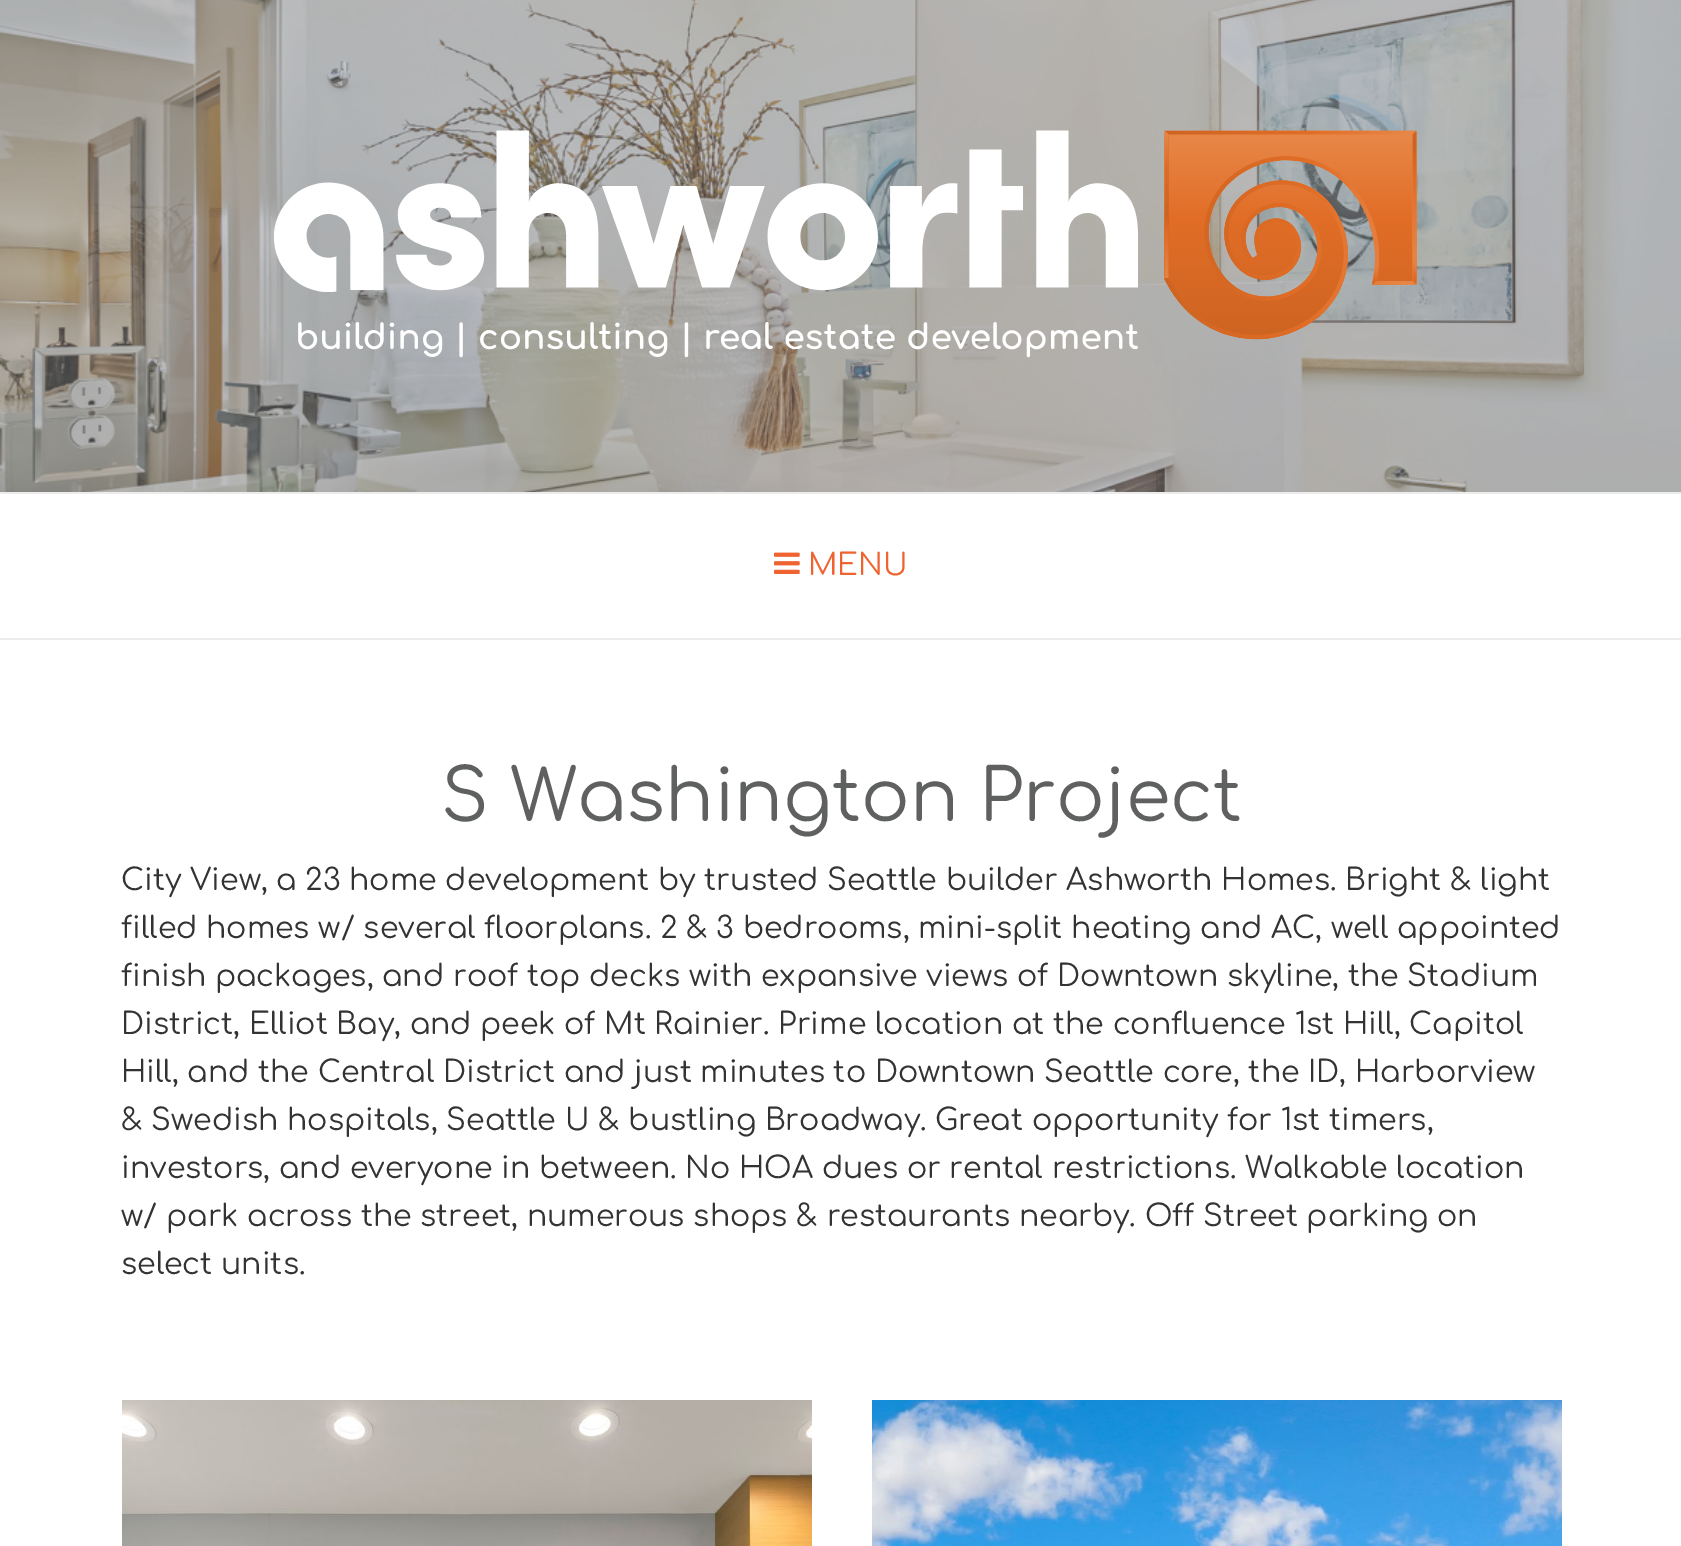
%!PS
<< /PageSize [1681 1546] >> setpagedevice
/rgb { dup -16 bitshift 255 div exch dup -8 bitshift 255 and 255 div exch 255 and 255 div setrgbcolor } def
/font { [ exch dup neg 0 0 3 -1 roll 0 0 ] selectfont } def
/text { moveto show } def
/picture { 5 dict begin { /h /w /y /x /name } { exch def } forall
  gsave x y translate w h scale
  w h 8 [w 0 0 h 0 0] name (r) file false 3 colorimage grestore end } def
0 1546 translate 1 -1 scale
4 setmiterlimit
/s1 { /Comfortaa-Regular 30 font 16#EF6330 rgb } def
/s2 { /Comfortaa-Regular 72 font 16#5F6160 rgb } def
/s3 { /Comfortaa-Regular 30 font 16#333333 rgb } def
16#FFFFFF rgb
0 0 1681 1546 rectfill
(pic1.raw) 0 0 1681 492 picture
(pic2.raw) 273 130 1144 228 picture
16#ECECEC rgb
0 492 1681 2 rectfill
0 638 1681 2 rectfill
(pic3.raw) 774 552 26 22 picture
s1
(MENU) 808 575 text
s2
(S Washington Project) 441 821 text
s3
(City View, a 23 home development by trusted Seattle builder Ashworth Homes. Bright & light) 121 890 text
(filled homes w/ several floorplans. 2 & 3 bedrooms, mini-split heating and AC, well appointed) 121 938 text
(finish packages, and roof top decks with expansive views of Downtown skyline, the Stadium) 121 986 text
(District, Elliot Bay, and peek of Mt Rainier. Prime location at the confluence 1st Hill, Capitol) 121 1034 text
(Hill, and the Central District and just minutes to Downtown Seattle core, the ID, Harborview) 121 1082 text
(& Swedish hospitals, Seattle U & bustling Broadway. Great opportunity for 1st timers,) 121 1130 text
(investors, and everyone in between. No HOA dues or rental restrictions. Walkable location) 121 1178 text
(w/ park across the street, numerous shops & restaurants nearby. Off Street parking on) 121 1226 text
(select units.) 121 1274 text
(pic4.raw) 122 1400 690 146 picture
(pic5.raw) 872 1400 690 146 picture
showpage
